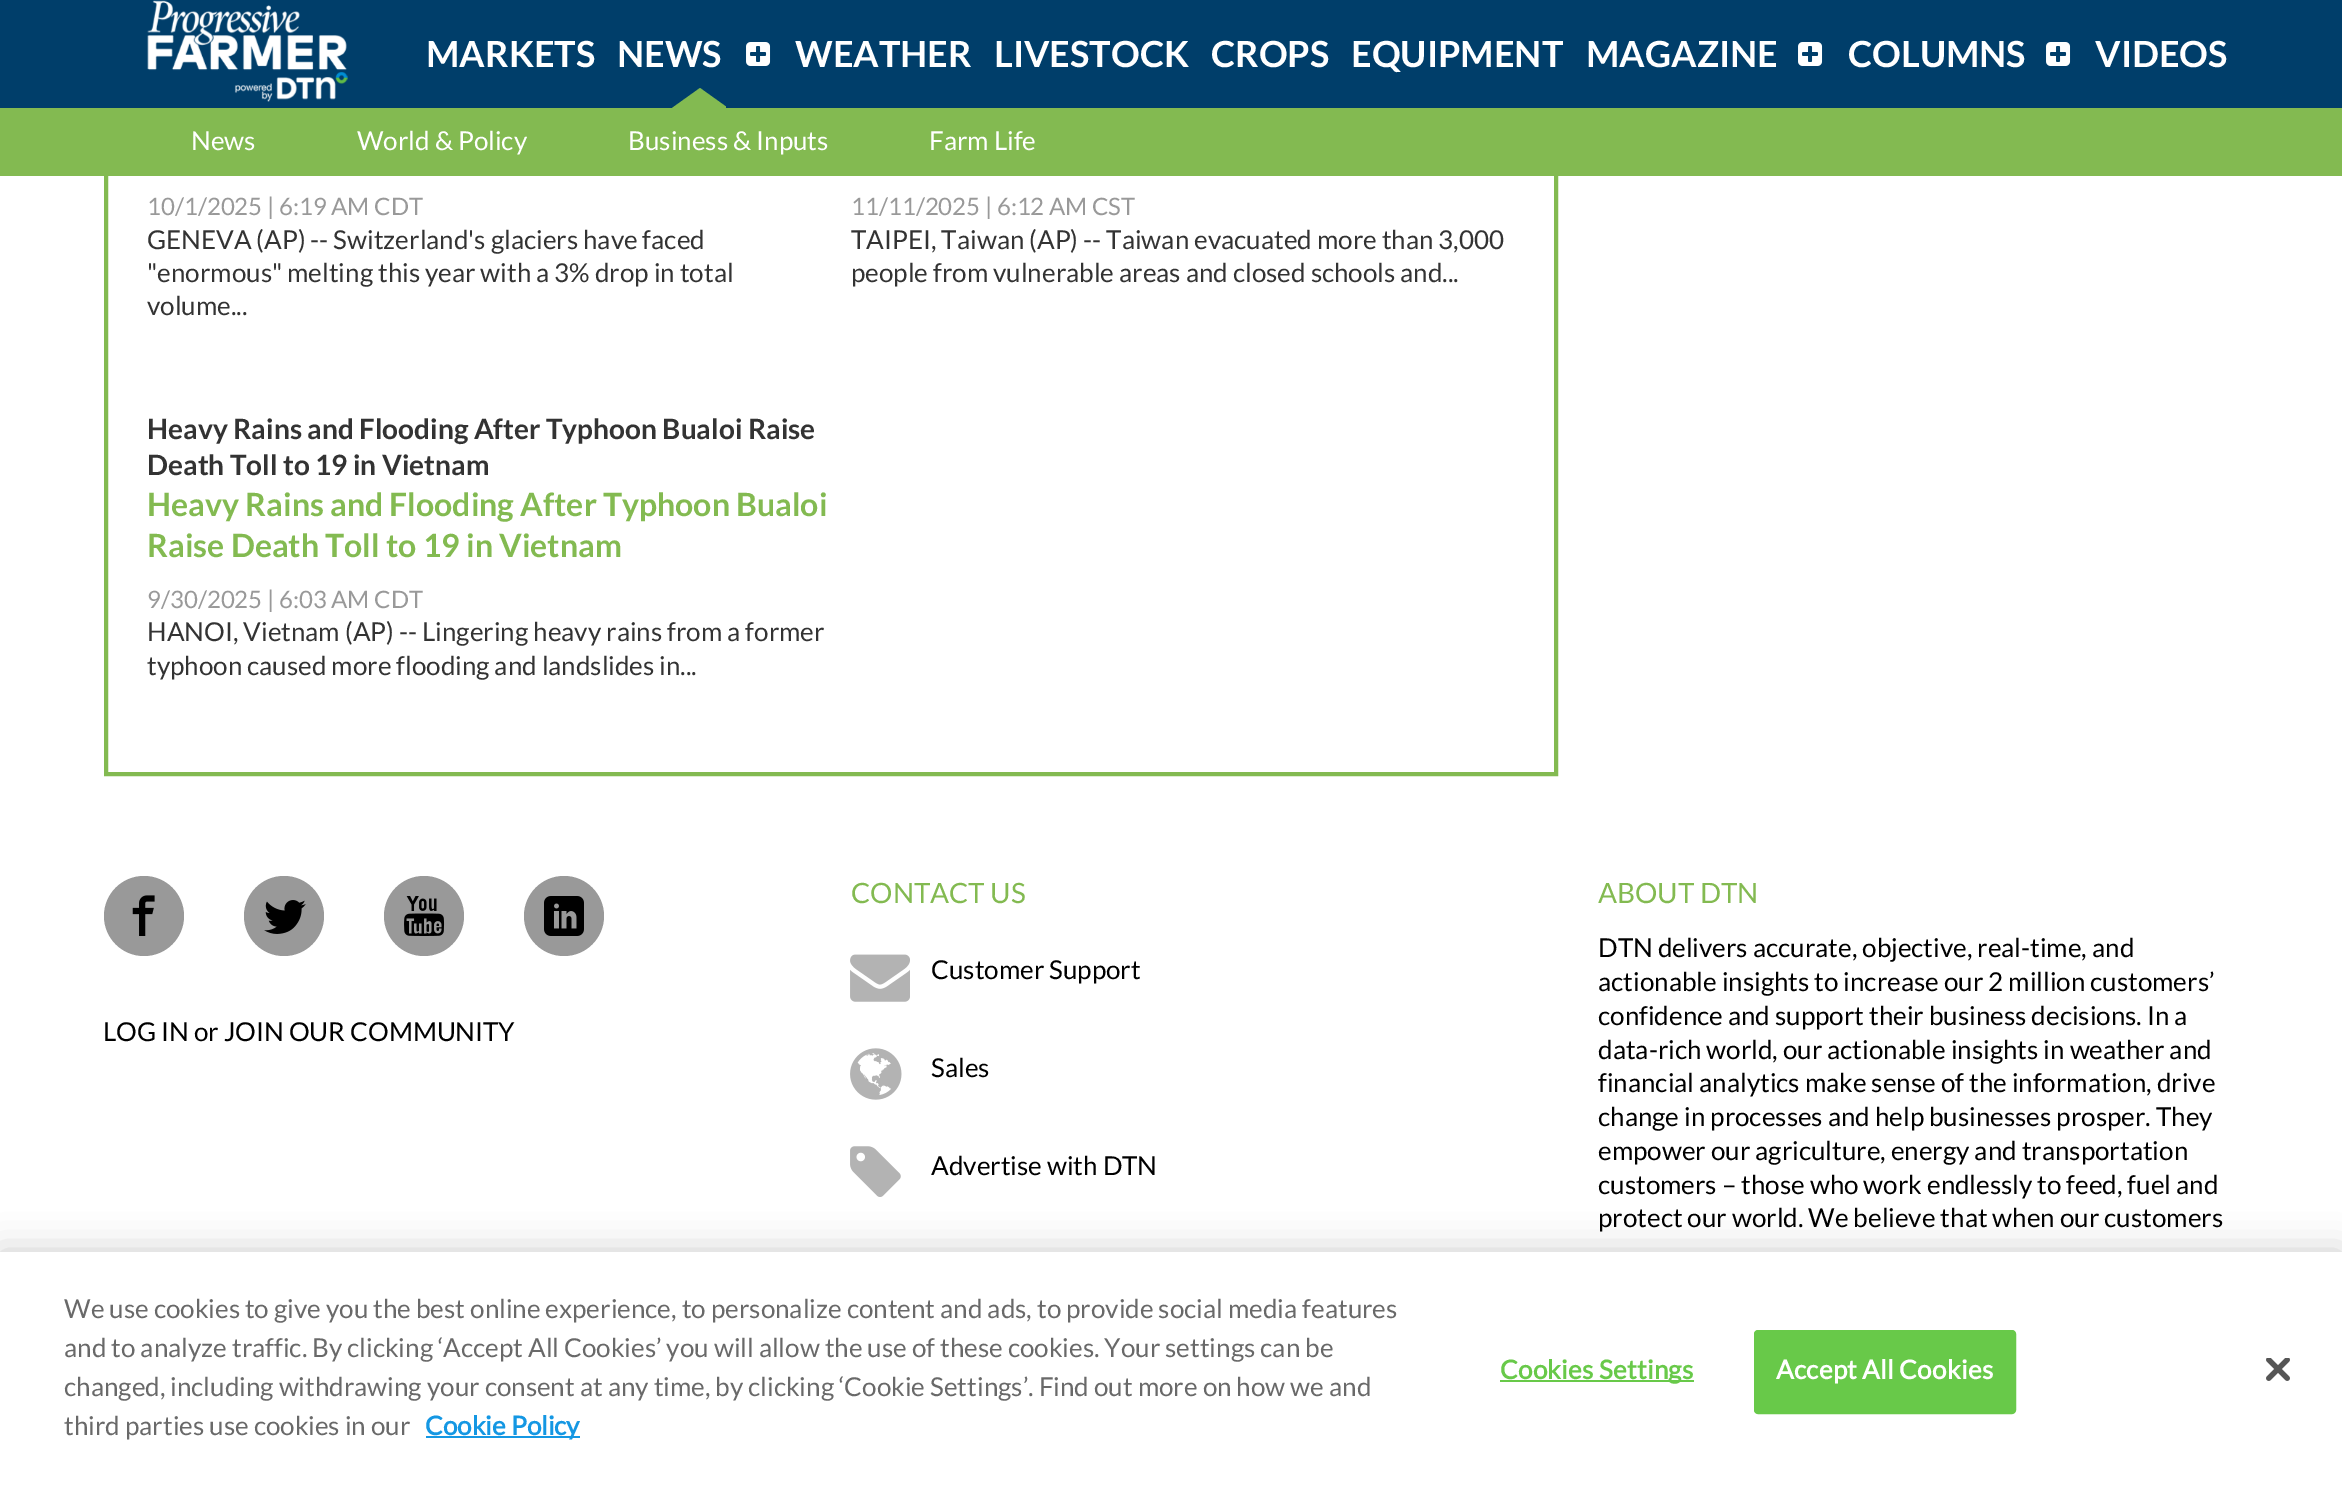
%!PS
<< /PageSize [2342 1494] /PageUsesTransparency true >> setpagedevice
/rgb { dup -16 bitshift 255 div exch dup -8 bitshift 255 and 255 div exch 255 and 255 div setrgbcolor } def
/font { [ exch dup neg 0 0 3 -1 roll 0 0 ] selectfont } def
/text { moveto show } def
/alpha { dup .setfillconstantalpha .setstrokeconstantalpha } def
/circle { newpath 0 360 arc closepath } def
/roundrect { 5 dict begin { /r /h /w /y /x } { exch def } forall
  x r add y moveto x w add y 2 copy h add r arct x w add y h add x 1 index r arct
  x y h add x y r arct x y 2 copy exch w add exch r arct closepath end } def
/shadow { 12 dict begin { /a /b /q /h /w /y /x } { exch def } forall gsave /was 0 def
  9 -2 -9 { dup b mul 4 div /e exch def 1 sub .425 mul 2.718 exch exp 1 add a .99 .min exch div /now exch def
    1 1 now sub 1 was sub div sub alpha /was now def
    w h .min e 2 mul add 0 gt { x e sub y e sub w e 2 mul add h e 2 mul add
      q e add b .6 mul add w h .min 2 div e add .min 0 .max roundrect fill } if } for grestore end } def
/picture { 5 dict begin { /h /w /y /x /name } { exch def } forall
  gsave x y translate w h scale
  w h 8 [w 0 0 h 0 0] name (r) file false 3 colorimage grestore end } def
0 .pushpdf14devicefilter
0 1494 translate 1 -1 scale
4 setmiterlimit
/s1 { /Lato-Bold 36 font 16#FFFFFF rgb } def
/s2 { /Lato-Regular 26 font 16#FFFFFF rgb } def
/s3 { /Lato-Regular 24 font 16#999999 rgb } def
/s4 { /Lato-Regular 26 font 16#333333 rgb } def
/s5 { /Lato-Bold 28 font 16#333333 rgb } def
/s6 { /Lato-Bold 32 font 16#83BA51 rgb } def
/s7 { /Lato-Regular 26 font 16#000000 rgb } def
/s8 { /Lato-Regular 28 font 16#83BA51 rgb } def
/s9 { /Lato-Regular 26.02 font 16#696969 rgb } def
/s10 { /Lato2-Bold 26.02 font 16#1497E3 rgb } def
16#FFFFFF rgb
0 0 2342 1494 rectfill
16#83BA51 rgb
4 setlinewidth
106 -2 1450 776 rectstroke
16#003E6A rgb
0 0 2342 108 rectfill
(pic1.raw) 147 0 201 102 picture
s1
(MARKETS) 426 67 text
(NEWS) 617 67 text
gsave
618 0 108 108 rectclip
16#83BA51 rgb
728 108 moveto 672 108 lineto 700 88 lineto closepath fill
grestore
(pic2.raw) 746 42 25 24 picture
(WEATHER) 795 67 text
(LIVESTOCK) 994 67 text
(CROPS) 1211 67 text
(EQUIPMENT) 1351 67 text
(MAGAZINE) 1586 67 text
(pic2.raw) 1798 42 25 24 picture
(COLUMNS) 1848 67 text
(pic2.raw) 2046 42 25 24 picture
(VIDEOS) 2095 67 text
16#83BA51 rgb
0 108 2342 68 rectfill
s2
(News) 191 150 text
(World & Policy) 357 150 text
(Business & Inputs) 628 150 text
(Farm Life) 929 150 text
s3
(10/1/2025 | 6:19 AM CDT) 147 215 text
s4
(GENEVA \(AP\) -- Switzerland's glaciers have faced) 147 249 text
("enormous" melting this year with a 3% drop in total) 147 282 text
(volume...) 147 315 text
s3
(11/11/2025 | 6:12 AM CST) 851 215 text
s4
(TAIPEI, Taiwan \(AP\) -- Taiwan evacuated more than 3,000) 851 249 text
(people from vulnerable areas and closed schools and...) 851 282 text
s5
(Heavy Rains and Flooding After Typhoon Bualoi Raise) 147 439 text
(Death Toll to 19 in Vietnam) 147 475 text
s6
(Heavy Rains and Flooding After Typhoon Bualoi) 147 516 text
(Raise Death Toll to 19 in Vietnam) 147 557 text
s3
(9/30/2025 | 6:03 AM CDT) 147 608 text
s4
(HANOI, Vietnam \(AP\) -- Lingering heavy rains from a former) 147 641 text
(typhoon caused more flooding and landslides in...) 147 675 text
16#999999 rgb
144 916 40 circle fill
(pic3.raw) 132 895 23 41 picture
284 916 40 circle fill
(pic4.raw) 264 900 42 34 picture
424 916 40 circle fill
(pic5.raw) 404 896 41 40 picture
564 916 40 circle fill
(pic6.raw) 544 896 40 40 picture
s7
(LOG IN or JOIN OUR COMMUNITY) 103 1041 text
s8
(CONTACT US) 851 903 text
(pic7.raw) 850 954 60 48 picture
s7
(Customer Support) 931 979 text
(pic8.raw) 850 1048 52 52 picture
(Sales) 931 1077 text
(pic9.raw) 850 1146 51 51 picture
(Advertise with DTN) 931 1175 text
s8
(ABOUT DTN) 1598 903 text
s7
(DTN delivers accurate, objective, real-time, and) 1598 957 text
(actionable insights to increase our 2 million customers’) 1598 991 text
(confidence and support their business decisions. In a) 1598 1025 text
(data-rich world, our actionable insights in weather and) 1598 1059 text
(financial analytics make sense of the information, drive) 1598 1092 text
(change in processes and help businesses prosper. They) 1598 1126 text
(empower our agriculture, energy and transportation) 1598 1160 text
(customers – those who work endlessly to feed, fuel and) 1598 1194 text
(protect our world. We believe that when our customers) 1598 1227 text
0 1252 2342 242 0 18 0.2 shadow
16#FFFFFF rgb
0 1252 2342 242 rectfill
s9
(We use cookies to give you the best online experience, to personalize content and ads, to provide social media features) 64 1318 text
(and to analyze traffic. By clicking ‘Accept All Cookies’ you will allow the use of these cookies. Your settings can be) 64 1357 text
(changed, including withdrawing your consent at any time, by clicking ‘Cookie Settings’. Find out more on how we and) 64 1396 text
(third parties use cookies in our) 64 1435 text
16#1497E3 rgb
426 1436 154 2 rectfill
s10
(Cookie Policy) 425 1435 text
16#68C949 rgb
1500 1380 194 2 rectfill
1500 1379 moveto 0.25 0 (Cookies Settings) ashow
1755 1331 260 82 3 roundrect gsave fill grestore
2 setlinewidth
stroke
16#FFFFFF rgb
1776 1379 moveto 0.25 0 (Accept All Cookies) ashow
(pic10.raw) 2266 1358 24 23 picture
.poppdf14devicefilter showpage
